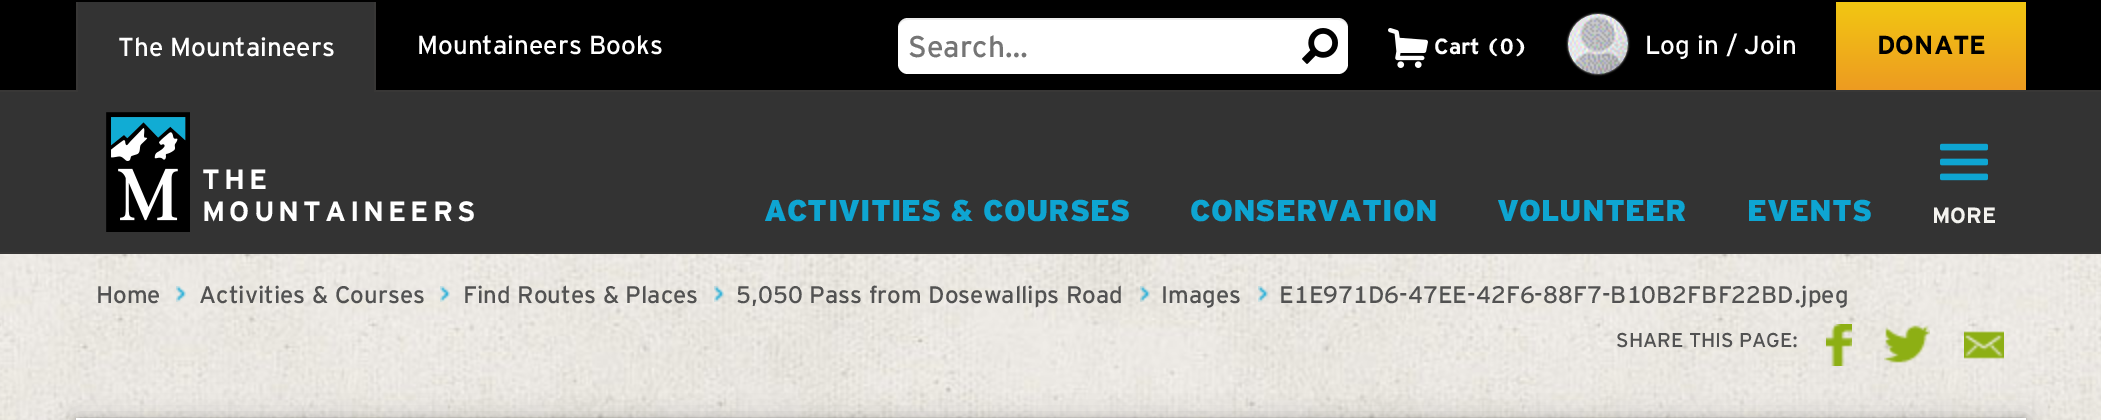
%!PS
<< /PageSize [2101 420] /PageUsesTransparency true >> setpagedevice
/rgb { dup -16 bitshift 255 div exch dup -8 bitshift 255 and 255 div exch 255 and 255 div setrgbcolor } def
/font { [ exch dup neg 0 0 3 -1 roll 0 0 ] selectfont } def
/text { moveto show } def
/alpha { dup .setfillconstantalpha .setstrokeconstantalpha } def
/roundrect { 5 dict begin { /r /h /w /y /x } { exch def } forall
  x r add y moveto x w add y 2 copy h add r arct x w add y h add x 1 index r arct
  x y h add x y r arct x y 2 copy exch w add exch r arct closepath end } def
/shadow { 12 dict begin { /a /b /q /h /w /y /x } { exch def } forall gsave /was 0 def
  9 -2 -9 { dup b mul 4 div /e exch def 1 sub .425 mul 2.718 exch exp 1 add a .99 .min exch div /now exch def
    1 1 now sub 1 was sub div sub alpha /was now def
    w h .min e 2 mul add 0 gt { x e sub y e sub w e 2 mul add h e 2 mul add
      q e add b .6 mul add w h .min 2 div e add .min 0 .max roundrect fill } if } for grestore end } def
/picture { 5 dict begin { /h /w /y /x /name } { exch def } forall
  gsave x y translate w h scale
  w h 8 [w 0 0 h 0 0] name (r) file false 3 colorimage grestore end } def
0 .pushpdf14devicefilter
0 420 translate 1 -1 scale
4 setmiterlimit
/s1 { /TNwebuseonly-Regular 26 font 16#FFFFFF rgb } def
/s2 { /TNwebuseonly-Regular 30 font 16#757575 rgb } def
/s3 { /TNwebuseonly-Bold 22 font 16#FFFFFF rgb } def
/s4 { /TNwebuseonly-Bold 26 font 16#000000 rgb } def
/s5 { /TNwebuseonly-Black 30 font 16#0EA5D2 rgb } def
/s6 { /TNwebuseonly-Bold 22 font 16#F4F3EF rgb } def
/s7 { /TNwebuseonly-Regular 24 font 16#525252 rgb } def
/s8 { /TNwebuseonly-Regular 20 font 16#525252 rgb } def
16#FFFFFF rgb
0 0 2101 420 rectfill
(pic1.raw) 0 254 2101 166 picture
16#000000 rgb
0 0 2101 90 rectfill
16#383736 rgb
0 90 2101 2 rectfill
16#333333 rgb
78 2 296 90 rectfill
16#383736 rgb
374 2 2 90 rectfill
76 2 2 90 rectfill
s1
(The Mountaineers) 118 56 text
(Mountaineers Books) 417 54 text
898 18 450 56 10 roundrect fill
0.07 alpha
16#000000 rgb
908 20 moveto 1338 20 lineto 1344 20 1348 24 1348 30 curveto 1348 28 lineto 1348 22 1344 18 1338 18 curveto 908 18 lineto 902 18 898 22 898 28 curveto 898 30 lineto 898 24 902 20 908 20 curveto closepath fill
1 alpha
s2
(Search…) 908 57 text
(pic2.raw) 1302 28 36 36 picture
(pic3.raw) 1388 28 40 40 picture
s3
(Cart \(0\)) 1434 54 text
16#CCCCCC rgb
1568 14 60 60 30 1 1 shadow
(pic4.raw) 1568 14 60 60 picture
s1
(Log in / Join) 1645 54 text
gsave 1836 2 moveto 2026 2 lineto 2026 90 lineto 1836 90 lineto closepath clip newpath
<< /ShadingType 2 /ColorSpace /DeviceRGB /Coords [1931 2 1931 90] /Extend [true true] /Function << /FunctionType 2 /Domain [0 1] /C0 [0.949 0.78 0.071] /C1 [0.929 0.608 0.129] /N 1 >> >> shfill grestore
s4
(DONATE) 1877 54 text
16#333333 rgb
0 92 2101 160 rectfill
16#383736 rgb
0 252 2101 2 rectfill
(pic5.raw) 106 112 84 120 picture
/TNwebuseonly-Bold 28 font
16#FFFFFF rgb
202 189 moveto 4 0 (THE) ashow
202 221 moveto 4 0 (MOUNTAINEERS) ashow
s5
(ACTIVITIES & COURSES) 764 221 text
(CONSERVATION) 1190 221 text
(VOLUNTEER) 1497 221 text
(EVENTS) 1747 221 text
(pic6.raw) 1940 143 48 38 picture
s6
(MORE) 1932 223 text
s7
(Home) 96 303 text
(pic7.raw) 176 286 10 16 picture
(Activities & Courses) 199 303 text
(pic8.raw) 440 286 10 16 picture
(Find Routes & Places) 463 303 text
(pic9.raw) 714 286 10 16 picture
(5,050 Pass from Dosewallips Road) 736 303 text
(pic10.raw) 1140 286 10 16 picture
(Images) 1161 303 text
(pic11.raw) 1258 286 10 16 picture
(E1E971D6-47EE-42F6-88F7-B10B2FBF22BD.jpeg) 1279 303 text
s8
(SHARE THIS PAGE:) 1616 347 text
(pic12.raw) 1826 324 26 42 picture
(pic13.raw) 1884 325 46 38 picture
(pic14.raw) 1964 331 40 28 picture
16#000000 rgb
76 420 1950 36 0 12 0.2 shadow
76 418 1950 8 0 2 0.2 shadow
16#FFFFFF rgb
76 418 1950 2 rectfill
.poppdf14devicefilter showpage
